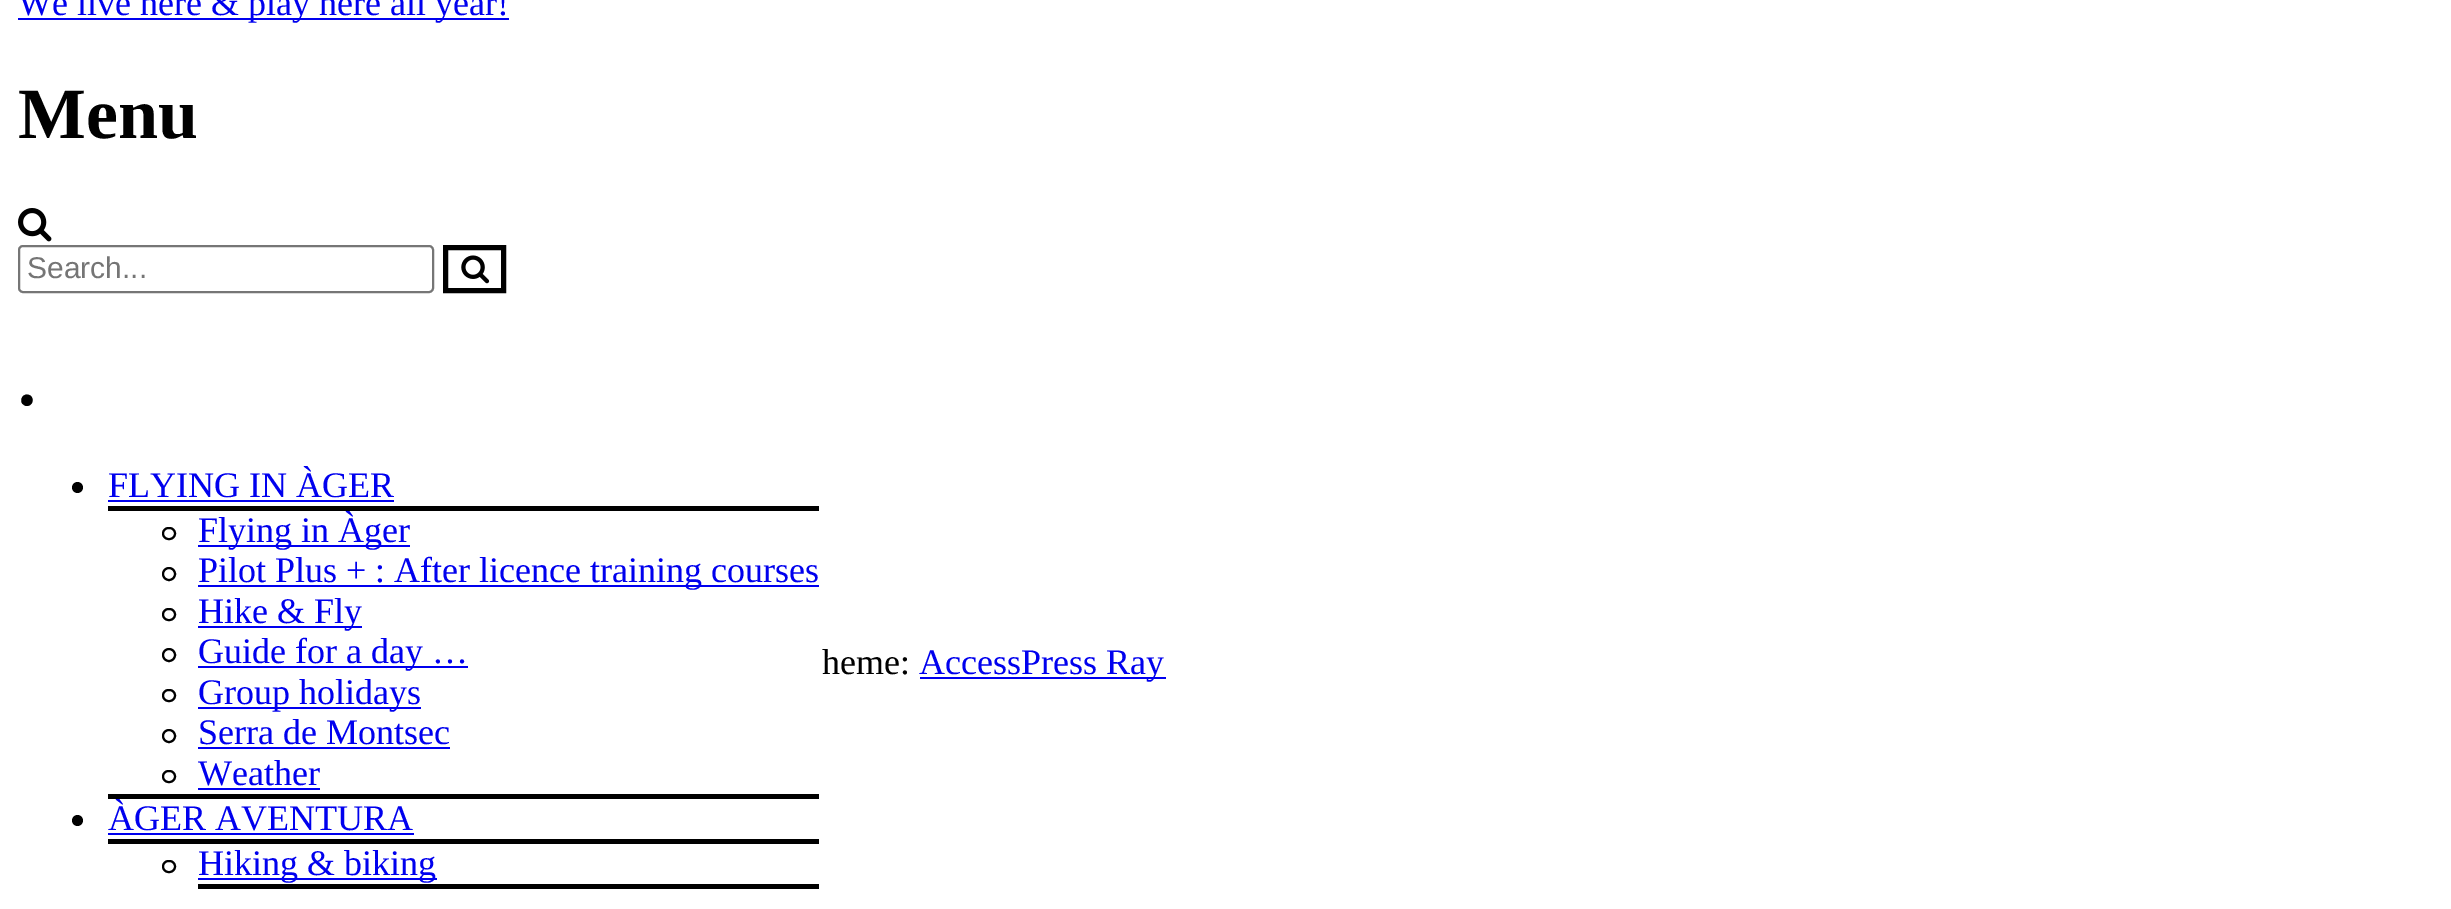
%!PS
<< /PageSize [2451 909] >> setpagedevice
/rgb { dup -16 bitshift 255 div exch dup -8 bitshift 255 and 255 div exch 255 and 255 div setrgbcolor } def
/font { [ exch dup neg 0 0 3 -1 roll 0 0 ] selectfont } def
/text { moveto show } def
/circle { newpath 0 360 arc closepath } def
/roundrect { 5 dict begin { /r /h /w /y /x } { exch def } forall
  x r add y moveto x w add y 2 copy h add r arct x w add y h add x 1 index r arct
  x y h add x y r arct x y 2 copy exch w add exch r arct closepath end } def
/picture { 5 dict begin { /h /w /y /x /name } { exch def } forall
  gsave x y translate w h scale
  w h 8 [w 0 0 h 0 0] name (r) file false 3 colorimage grestore end } def
0 909 translate 1 -1 scale
4 setmiterlimit
/s1 { /LiberationSerif-Regular 36 font 16#0000EE rgb } def
/s2 { /LiberationSerif-Bold 72 font 16#000000 rgb } def
/s3 { /LiberationSans-Regular 30 font 16#757575 rgb } def
/s4 { /LiberationSerif-Regular 36 font 16#000000 rgb } def
16#FFFFFF rgb
0 0 2451 909 rectfill
16#0000EE rgb
18 18 491 2 rectfill
s1
(We live here & play here all year!) 18 15 text
s2
(Menu) 18 138 text
(pic1.raw) 18 208 34 34 picture
16#767676 rgb
2 setlinewidth
19 246 414 46 4 roundrect stroke
s3
(Search...) 27 278 text
16#000000 rgb
5 setlinewidth
445.5 247.5 58 43 rectstroke
(pic2.raw) 461 255 29 29 picture
77.5 487.5 5.5 circle fill
s1
(FLYING IN ÀGER) 108 497 text
108 500 286 2 rectfill
16#000000 rgb
108 506 711 5 rectfill
108 794 711 5 rectfill
2 setlinewidth
163 528 12 11 5.5 roundrect stroke
16#0000EE rgb
198 545 212 2 rectfill
(Flying in Àger) 198 542 text
16#000000 rgb
169 574 6 circle stroke
16#0000EE rgb
198 585 621 2 rectfill
(Pilot Plus + : After licence training courses) 198 582 text
16#000000 rgb
163 609 12 11 5.5 roundrect stroke
16#0000EE rgb
198 626 164 2 rectfill
(Hike & Fly) 198 623 text
16#000000 rgb
169 655 6 circle stroke
16#0000EE rgb
198 666 270 2 rectfill
(Guide for a day …) 198 663 text
16#000000 rgb
163 690 12 11 5.5 roundrect stroke
16#0000EE rgb
198 707 223 2 rectfill
(Group holidays) 198 704 text
16#000000 rgb
169 736 6 circle stroke
s1
(Serra de Montsec) 198 744 text
198 747 252 2 rectfill
16#000000 rgb
163 771 12 11 5.5 roundrect stroke
s1
(Weather) 198 785 text
198 788 122 2 rectfill
16#000000 rgb
77.5 820.5 5.5 circle fill
s1
(ÀGER AVENTURA) 108 830 text
108 833 306 2 rectfill
16#000000 rgb
108 839 711 5 rectfill
163 861 12 11 5.5 roundrect stroke
16#0000EE rgb
198 878 239 2 rectfill
(Hiking & biking) 198 875 text
16#000000 rgb
198 884 621 5 rectfill
s2
(.) 18 405 text
s4
(heme:) 822 674 text
16#0000EE rgb
920 677 246 2 rectfill
(AccessPress Ray) 919 674 text
showpage
